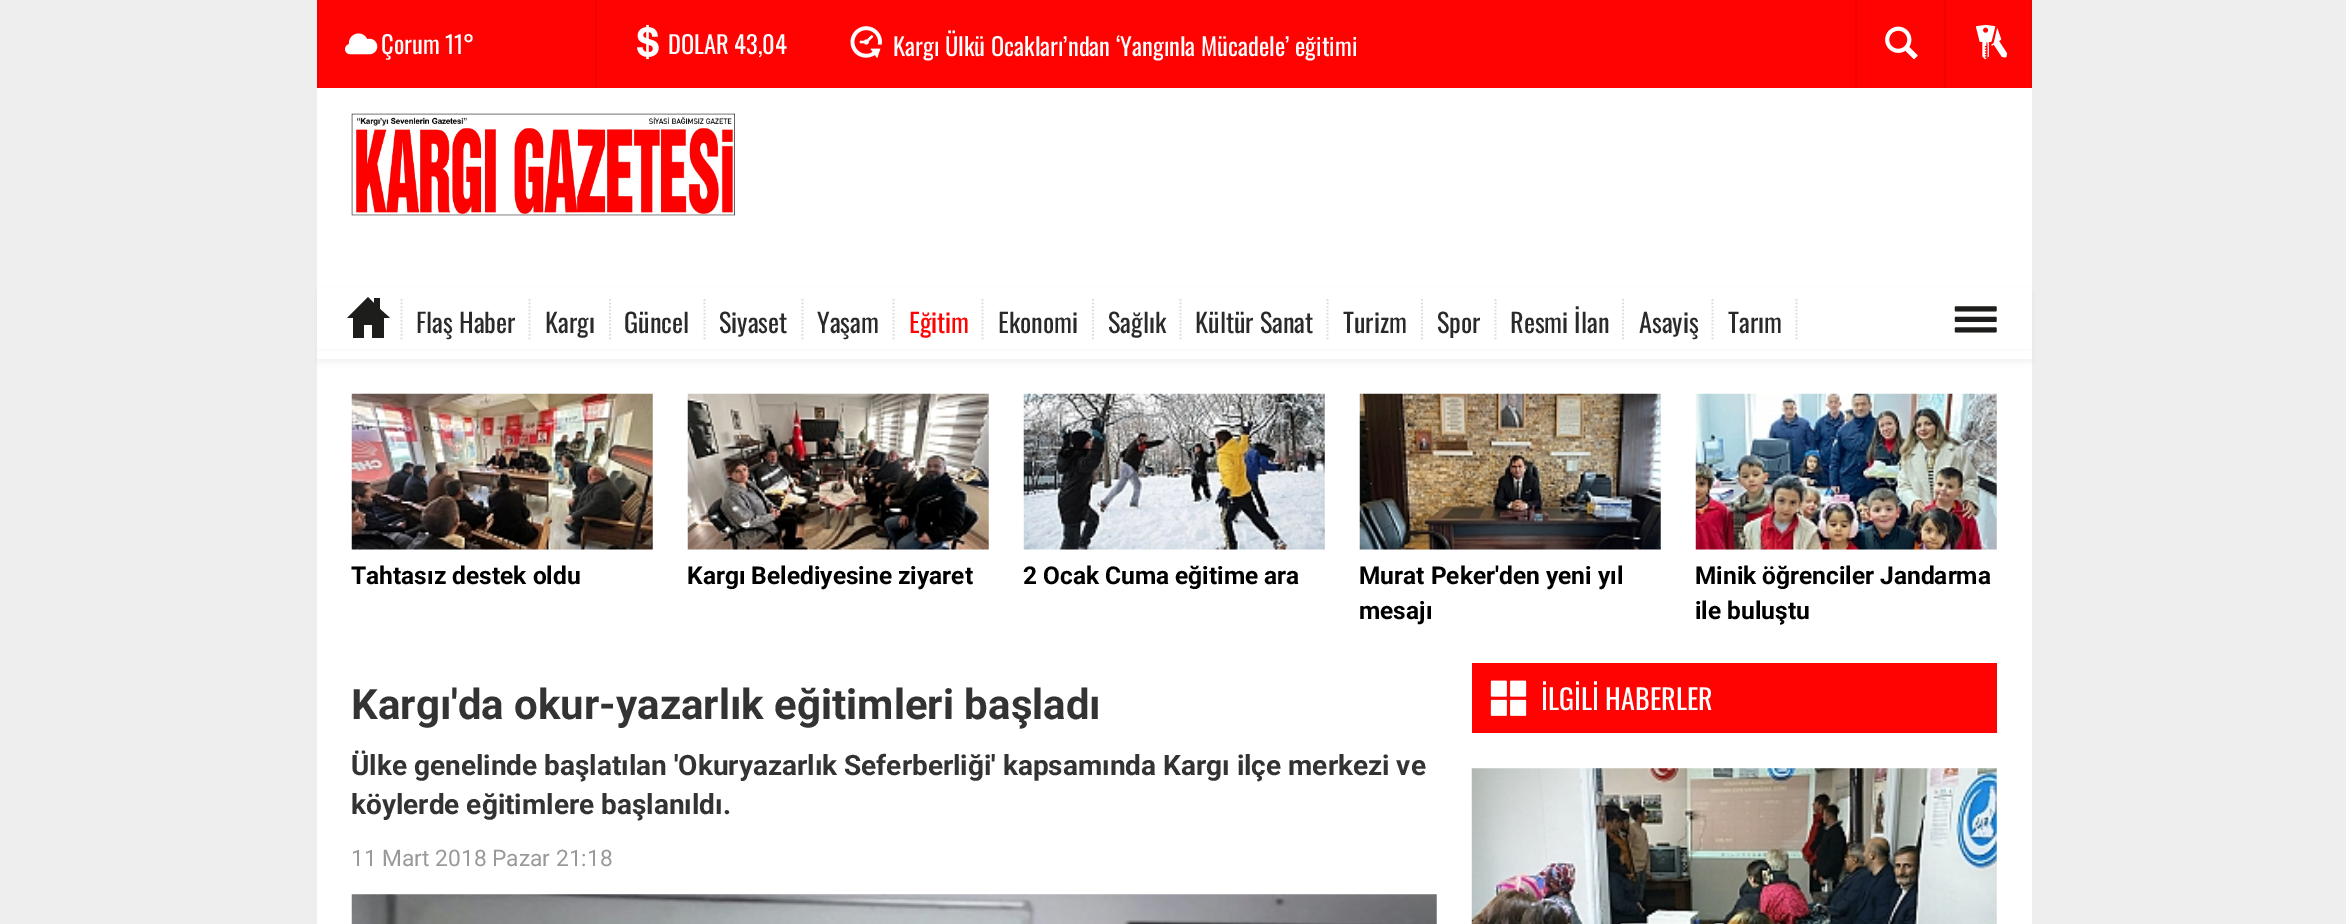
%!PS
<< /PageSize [2346 924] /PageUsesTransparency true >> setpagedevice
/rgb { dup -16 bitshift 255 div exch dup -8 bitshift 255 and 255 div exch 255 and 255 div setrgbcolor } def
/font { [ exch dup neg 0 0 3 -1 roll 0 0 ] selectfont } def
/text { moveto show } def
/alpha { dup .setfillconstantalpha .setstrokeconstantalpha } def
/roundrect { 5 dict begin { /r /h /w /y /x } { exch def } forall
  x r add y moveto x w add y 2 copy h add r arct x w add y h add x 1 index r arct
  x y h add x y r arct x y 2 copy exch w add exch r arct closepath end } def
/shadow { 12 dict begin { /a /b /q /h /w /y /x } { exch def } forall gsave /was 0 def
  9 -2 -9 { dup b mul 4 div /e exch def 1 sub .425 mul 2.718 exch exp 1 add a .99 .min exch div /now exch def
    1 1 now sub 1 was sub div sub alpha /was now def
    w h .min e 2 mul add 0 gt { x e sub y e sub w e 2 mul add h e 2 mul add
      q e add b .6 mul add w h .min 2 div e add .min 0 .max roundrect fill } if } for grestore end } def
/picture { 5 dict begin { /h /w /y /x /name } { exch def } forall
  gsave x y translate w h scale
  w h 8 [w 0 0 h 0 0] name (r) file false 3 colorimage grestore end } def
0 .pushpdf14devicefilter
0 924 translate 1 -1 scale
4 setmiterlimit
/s1 { /Oswald-Regular 24.5 font 16#FFFFFF rgb } def
/s2 { /Oswald-Regular 26.25 font 16#2A2A2A rgb } def
/s3 { /Oswald-Regular 26.25 font 16#FF0303 rgb } def
/s4 { /Roboto-Bold 24.5 font 16#000000 rgb } def
/s5 { /Roboto-Bold 42 font 16#333333 rgb } def
/s6 { /Roboto-Bold 28 font 16#333333 rgb } def
/s7 { /Roboto-Regular 22.75 font 16#999999 rgb } def
/s8 { /Oswald-Regular 28 font 16#FFFFFF rgb } def
16#EEEEEE rgb
0 0 2346 924 rectfill
16#FFFFFF rgb
317 88 1715 836 rectfill
16#FF0303 rgb
319 0 1711 88 rectfill
16#F20303 rgb
317 0 2 88 rectfill
(pic1.raw) 345 33 33 22 picture
s1
(Çorum 11°) 381 54 text
16#F20303 rgb
595 0 2 88 rectfill
(pic2.raw) 637 24 22 36 picture
s1
(DOLAR 43,04) 668 54 text
(pic3.raw) 850 26 32 32 picture
(Kargı Ülkü Ocakları’ndan ‘Yangınla Mücadele’ eğitimi) 893 56 text
16#F20303 rgb
1855 0 2 88 rectfill
(pic4.raw) 1885 26 33 34 picture
2030 0 2 88 rectfill
1944 0 2 88 rectfill
(pic5.raw) 1976 24 32 36 picture
(pic6.raw) 351 113 384 103 picture
16#CCCCCC rgb
317 292 1715 70 0 3.5 0.25 shadow
16#FFFFFF rgb
317 289 1715 70 rectfill
16#FAFAFA rgb
317 349 1714 2 rectfill
16#DDDDDD rgb
1.8 setlinewidth
[1.75 1.75] 0 setdash
401.5 299 moveto 401.5 341 lineto stroke
16#1D1D1B rgb
347 318 moveto 368 297 lineto 374 303 lineto 374 298 lineto 380 298 lineto 380 309 lineto 390 318 lineto 384 318 lineto 384 338 lineto 372 338 lineto 372 325 lineto 364 325 lineto 364 338 lineto 353 338 lineto 353 318 lineto closepath fill
16#DDDDDD rgb
529.5 299 moveto 529.5 341 lineto stroke
s2
(Flaş Haber) 416 333 text
16#DDDDDD rgb
610 299 moveto 610 341 lineto stroke
s2
(Kargı) 545 333 text
16#DDDDDD rgb
704.5 299 moveto 704.5 341 lineto stroke
s2
(Güncel) 624 333 text
16#DDDDDD rgb
802.5 299 moveto 802.5 341 lineto stroke
s2
(Siyaset) 719 333 text
16#DDDDDD rgb
893.5 299 moveto 893.5 341 lineto stroke
s2
(Yaşam) 817 333 text
16#DDDDDD rgb
982.5 299 moveto 982.5 341 lineto stroke
s3
(Eğitim) 909 333 text
16#DDDDDD rgb
1093 299 moveto 1093 341 lineto stroke
s2
(Ekonomi) 998 333 text
16#DDDDDD rgb
1180.5 299 moveto 1180.5 341 lineto stroke
s2
(Sağlık) 1108 333 text
16#DDDDDD rgb
1327.5 299 moveto 1327.5 341 lineto stroke
s2
(Kültür Sanat) 1195 333 text
16#DDDDDD rgb
1422 299 moveto 1422 341 lineto stroke
s2
(Turizm) 1343 333 text
16#DDDDDD rgb
1495.5 299 moveto 1495.5 341 lineto stroke
s2
(Spor) 1437 333 text
16#DDDDDD rgb
1623 299 moveto 1623 341 lineto stroke
s2
(Resmi İlan) 1510 333 text
16#DDDDDD rgb
1712.5 299 moveto 1712.5 341 lineto stroke
s2
(Asayiş) 1639 333 text
16#DDDDDD rgb
1796.5 299 moveto 1796.5 341 lineto stroke
s2
(Tarım) 1728 333 text
(pic7.raw) 1954 306 43 27 picture
(pic8.raw) 351 393 302 157 picture
s4
(Tahtasız destek oldu) 351 584 text
(pic9.raw) 687 393 302 157 picture
(Kargı Belediyesine ziyaret) 687 584 text
(pic10.raw) 1023 393 302 157 picture
(2 Ocak Cuma eğitime ara) 1023 584 text
(pic11.raw) 1359 393 302 157 picture
(Murat Peker'den yeni yıl) 1359 584 text
(mesajı) 1359 619 text
(pic12.raw) 1695 393 302 157 picture
(Minik öğrenciler Jandarma) 1695 584 text
(ile buluştu) 1695 619 text
s5
(Kargı'da okur-yazarlık eğitimleri başladı) 351 719 text
s6
(Ülke genelinde başlatılan 'Okuryazarlık Seferberliği' kapsamında Kargı ilçe merkezi ve) 351 775 text
(köylerde eğitimlere başlanıldı.) 351 814 text
s7
(11 Mart 2018 Pazar 21:18) 351 866 text
(pic13.raw) 351 894 1086 30 picture
16#FF0303 rgb
1472 663 525 70 rectfill
(pic14.raw) 1490 680 37 36 picture
s8
(İLGİLİ HABERLER) 1541 710 text
(pic15.raw) 1471 768 526 156 picture
.poppdf14devicefilter showpage
